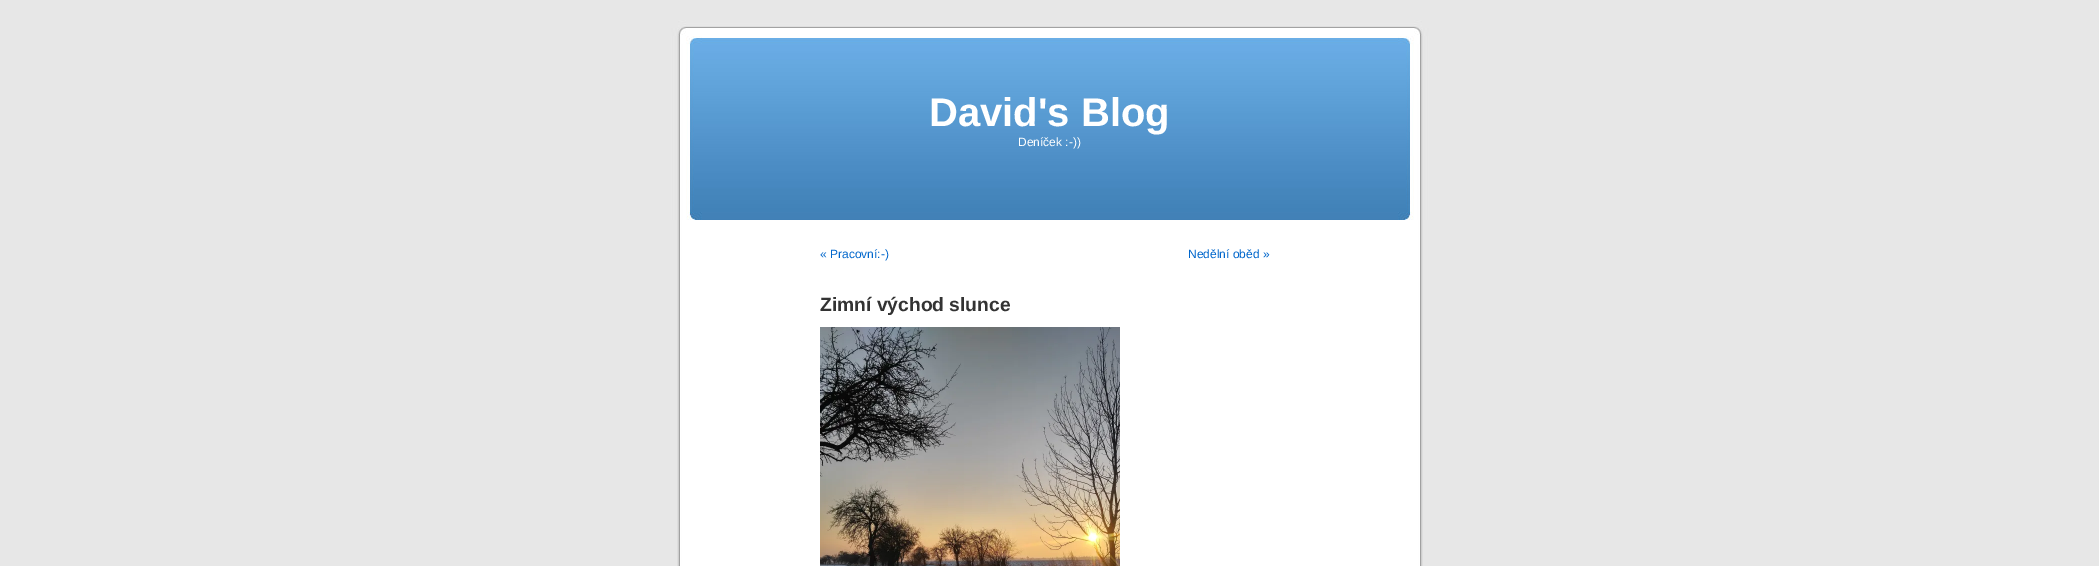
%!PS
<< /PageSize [2099 566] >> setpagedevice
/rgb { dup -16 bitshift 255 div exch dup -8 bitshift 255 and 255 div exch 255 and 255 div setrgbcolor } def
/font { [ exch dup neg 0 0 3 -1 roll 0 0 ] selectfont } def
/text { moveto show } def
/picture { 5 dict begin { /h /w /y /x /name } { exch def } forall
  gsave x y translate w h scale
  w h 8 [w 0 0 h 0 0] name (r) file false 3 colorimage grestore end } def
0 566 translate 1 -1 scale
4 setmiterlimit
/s1 { /LiberationSans-Bold 40 font 16#FFFFFF rgb } def
/s2 { /LiberationSans-Regular 12 font 16#FFFFFF rgb } def
/s3 { /LiberationSans-Regular 12 font 16#0066CC rgb } def
/s4 { /LiberationSans-Bold 19.25 font 16#333333 rgb } def
16#E7E7E7 rgb
0 0 2099 566 rectfill
(pic1.raw) 677 220 746 346 picture
(pic2.raw) 671 20 758 200 picture
s1
(David's Blog) 929 126 text
s2
(Deníček :-\)\)) 1018 146 text
s3
(« Pracovní:-\)) 820 258 text
(Nedělní oběd ») 1188 258 text
s4
(Zimní východ slunce) 820 311 text
(pic3.raw) 820 327 300 239 picture
showpage
